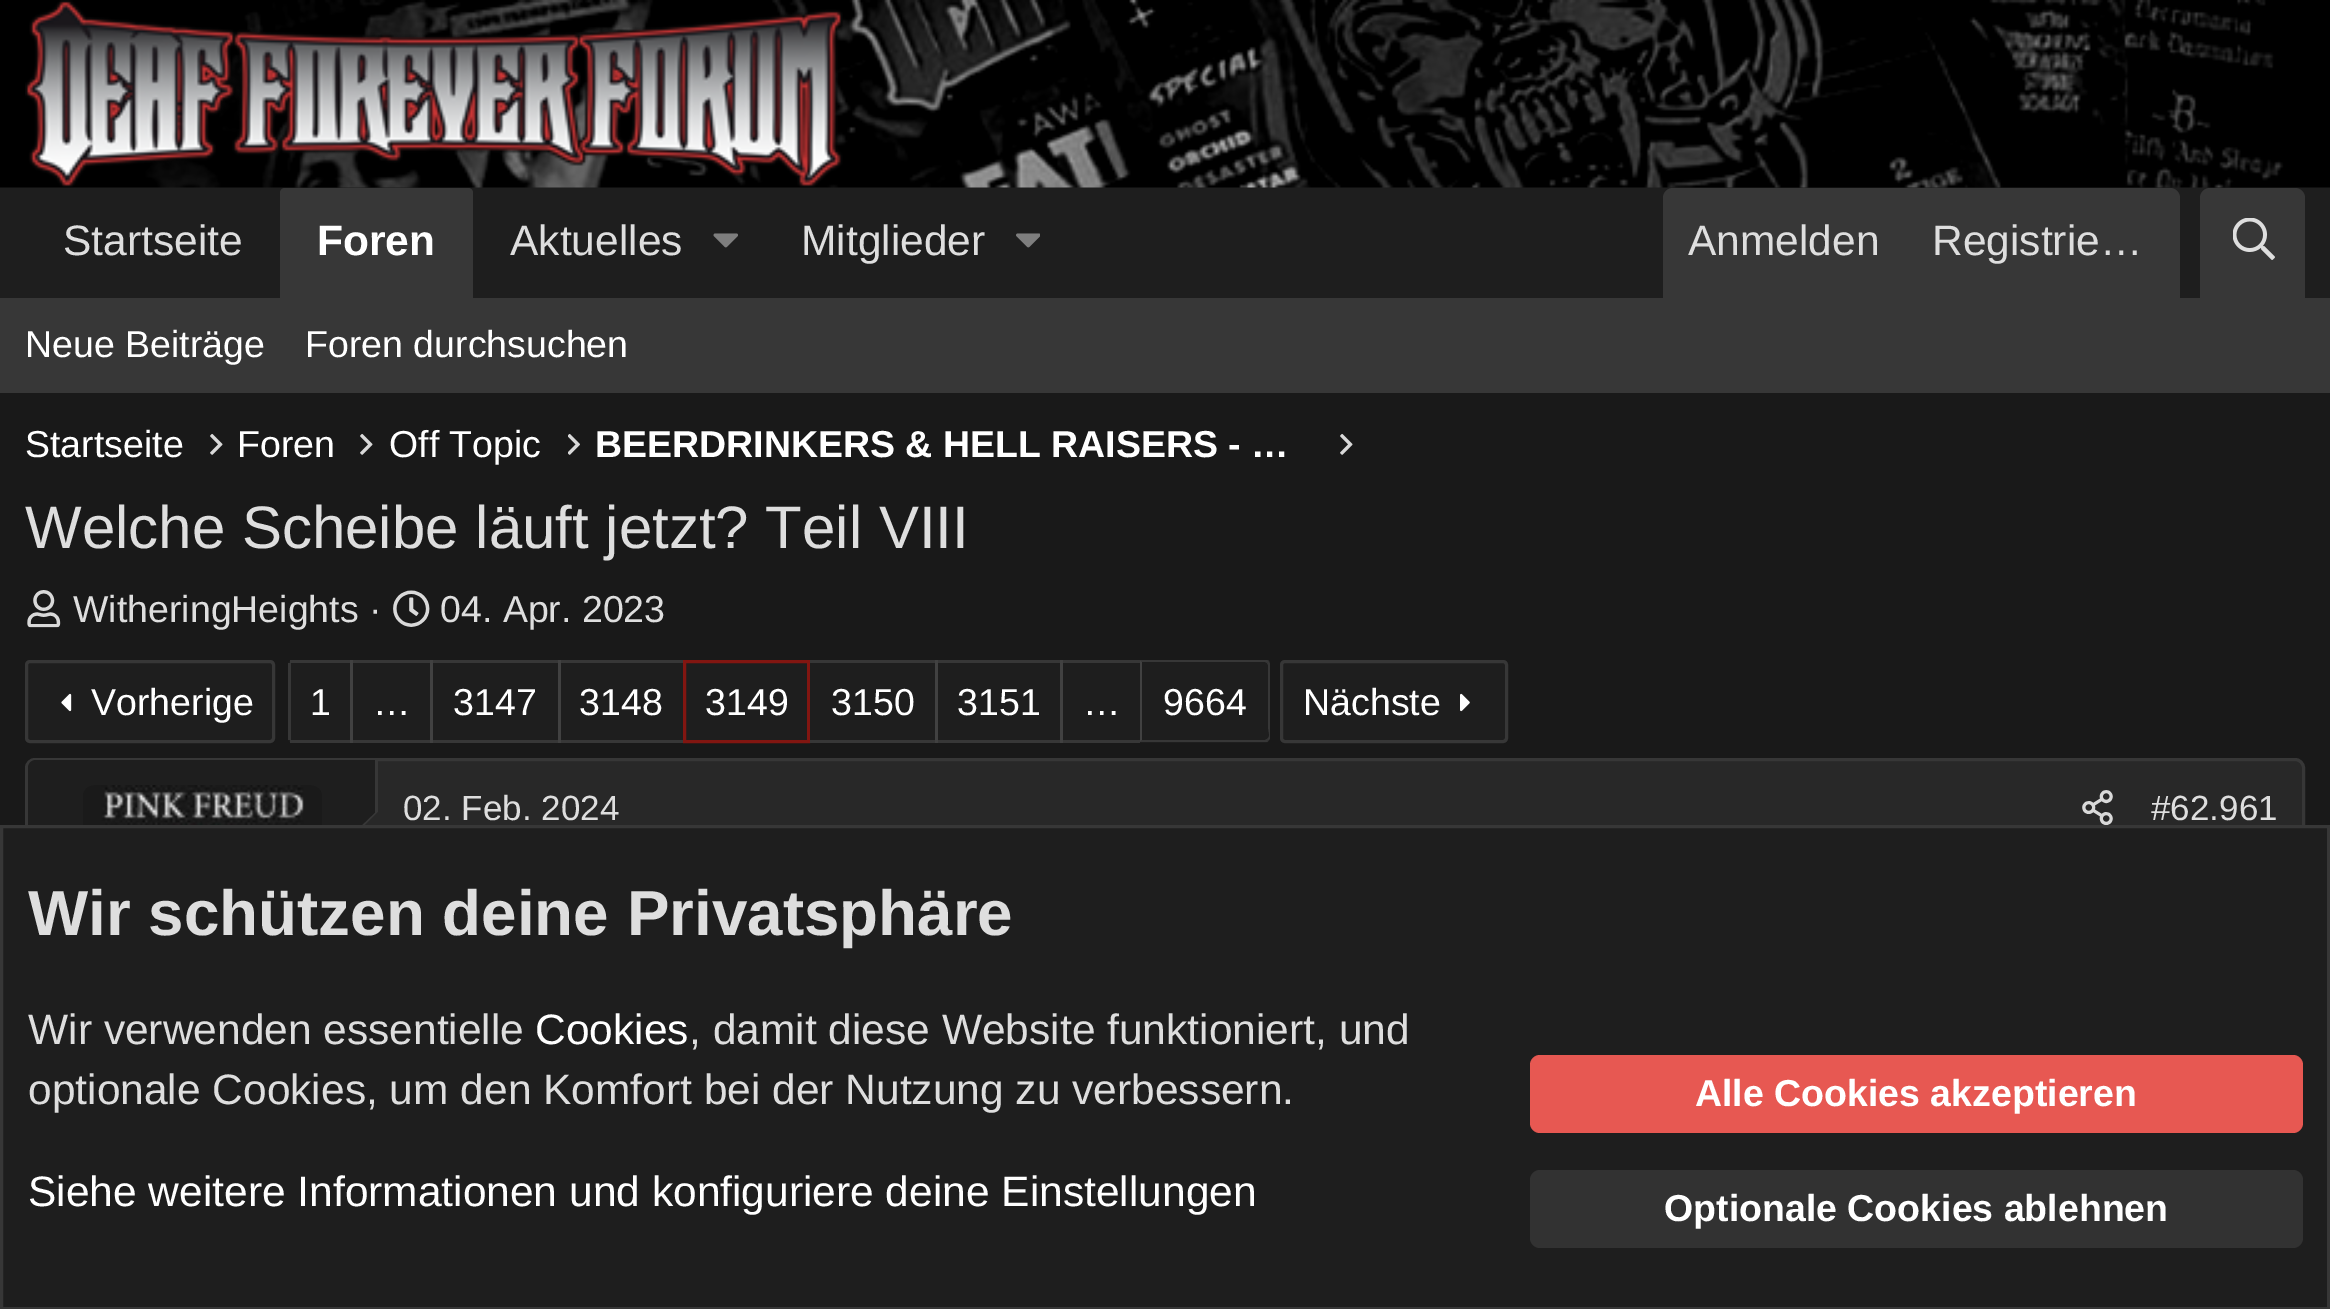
%!PS
<< /PageSize [2330 1309] >> setpagedevice
/rgb { dup -16 bitshift 255 div exch dup -8 bitshift 255 and 255 div exch 255 and 255 div setrgbcolor } def
/font { [ exch dup neg 0 0 3 -1 roll 0 0 ] selectfont } def
/text { moveto show } def
/roundrect { 5 dict begin { /r /h /w /y /x } { exch def } forall
  x r add y moveto x w add y 2 copy h add r arct x w add y h add x 1 index r arct
  x y h add x y r arct x y 2 copy exch w add exch r arct closepath end } def
/picture { 5 dict begin { /h /w /y /x /name } { exch def } forall
  gsave x y translate w h scale
  w h 8 [w 0 0 h 0 0] name (r) file false 3 colorimage grestore end } def
0 1309 translate 1 -1 scale
4 setmiterlimit
/s1 { /LiberationSans-Regular 42.5 font 16#DEDEDE rgb } def
/s2 { /LiberationSans-Bold 42.5 font 16#FFFFFF rgb } def
/s3 { /LiberationSans-Regular 37.5 font 16#FFFFFF rgb } def
/s4 { /LiberationSans-Bold 37.5 font 16#FFFFFF rgb } def
/s5 { /LiberationSans-Regular 60 font 16#DEDEDE rgb } def
/s6 { /LiberationSans-Regular 37.5 font 16#DEDEDE rgb } def
/s7 { /LiberationSans-Regular 35 font 16#DEDEDE rgb } def
/s8 { /LiberationSans-Bold 63.75 font 16#DEDEDE rgb } def
/s9 { /LiberationSans-Regular 42.5 font 16#FFFFFF rgb } def
16#191919 rgb
0 0 2330 1309 rectfill
16#1E1E1E rgb
0 187 2330 111 rectfill
(pic1.raw) 0 0 2330 188 picture
(pic2.raw) 25 0 818 187 picture
s1
(Startseite) 63 255 text
16#373737 rgb
285 188 moveto 468 188 lineto 471 188 473 190 473 193 curveto 473 298 lineto 280 298 lineto 280 193 lineto 280 190 282 188 285 188 curveto closepath fill
s2
(Foren) 317 255 text
s1
(Aktuelles) 510 255 text
(pic3.raw) 713 233 25 15 picture
(Mitglieder) 801 255 text
(pic4.raw) 1016 233 24 15 picture
16#373737 rgb
1673 188 moveto 2170 188 lineto 2175.5 188 2180 192.5 2180 198 curveto 2180 298 lineto 1663 298 lineto 1663 198 lineto 1663 192.5 1667.5 188 1673 188 curveto closepath fill
s1
(Anmelden) 1688 255 text
(Registrie…) 1932 255 text
16#373737 rgb
2210 188 moveto 2295 188 lineto 2300.5 188 2305 192.5 2305 198 curveto 2305 298 lineto 2200 298 lineto 2200 198 lineto 2200 192.5 2204.5 188 2210 188 curveto closepath fill
(pic5.raw) 2233 218 42 42 picture
0 298 2330 95 rectfill
s3
(Neue Beiträge) 25 357 text
(Foren durchsuchen) 305 357 text
(Startseite) 25 457 text
(pic6.raw) 210 433 13 22 picture
(Foren) 237 457 text
(pic6.raw) 360 433 13 22 picture
(Off Topic) 389 457 text
(pic7.raw) 568 433 12 22 picture
s4
(BEERDRINKERS & HELL RAISERS - …) 595 457 text
(pic6.raw) 1340 433 13 22 picture
s5
(Welche Scheibe läuft jetzt? Teil VIII) 25 548 text
(pic8.raw) 27 590 34 38 picture
s6
(WitheringHeights ·) 73 622 text
(pic9.raw) 393 590 37 37 picture
(04. Apr. 2023) 440 622 text
16#1E1E1E rgb
26.5 661.5 247 80 3.5 roundrect gsave fill grestore
16#373737 rgb
3 setlinewidth
stroke
(pic10.raw) 61 693 11 19 picture
s3
(Vorherige) 91 715 text
16#1E1E1E rgb
293 660 moveto 350 660 lineto 350 743 lineto 293 743 lineto 290 743 288 741 288 738 curveto 288 665 lineto 288 662 290 660 293 660 curveto closepath fill
16#373737 rgb
290 660 393 3 rectfill
290 740 393 3 rectfill
288 663 3 77 rectfill
s3
(1) 310 715 text
16#1E1E1E rgb
353 663 77 77 rectfill
16#414141 rgb
350 660 3 83 rectfill
s3
(…) 373 715 text
16#1E1E1E rgb
433 663 125 77 rectfill
16#414141 rgb
430 660 3 83 rectfill
s3
(3147) 453 715 text
16#1E1E1E rgb
561 663 122 77 rectfill
16#414141 rgb
558 660 3 83 rectfill
s3
(3148) 579 715 text
16#1E1E1E rgb
684.5 661.5 moveto 808.5 661.5 lineto 808.5 741.5 lineto 684.5 741.5 lineto closepath gsave fill grestore
16#821611 rgb
stroke
s3
(3149) 705 715 text
16#1E1E1E rgb
810 663 125 77 rectfill
16#373737 rgb
810 660 330 3 rectfill
810 740 330 3 rectfill
s3
(3150) 831 715 text
16#1E1E1E rgb
938 663 122 77 rectfill
16#414141 rgb
935 660 3 83 rectfill
s3
(3151) 957 715 text
16#1E1E1E rgb
1063 663 77 77 rectfill
16#414141 rgb
1060 660 3 83 rectfill
s3
(…) 1083 715 text
16#1E1E1E rgb
1140 660 moveto 1265 660 lineto 1268 660 1270 662 1270 665 curveto 1270 738 lineto 1270 741 1268 743 1265 743 curveto 1140 743 lineto closepath fill
16#373737 rgb
1140 660 moveto 1142 662 lineto 1265 662 lineto 1267 663 lineto 1269 661 lineto 1268 660 1266 660 1265 660 curveto closepath fill
1270 738 moveto 1270 664 lineto 1269 661 lineto 1267 663 lineto 1268 665 lineto 1268 726 lineto 1268 731 1271 737 1267 739 curveto 1268 741 lineto 1269 740 1270 739 1270 738 curveto closepath fill
1268 741 moveto 1268 742 1266 742 1265 742 curveto 1140 742 lineto 1142 740 lineto 1265 740 lineto 1267 739 lineto closepath fill
16#414141 rgb
1142 662 moveto 1140 660 lineto 1140 742 lineto 1142 740 lineto closepath fill
s3
(9664) 1163 715 text
16#1E1E1E rgb
1281.5 661.5 225 80 3.5 roundrect gsave fill grestore
16#373737 rgb
stroke
s3
(Nächste) 1303 715 text
(pic11.raw) 1460 693 10 19 picture
16#282828 rgb
26.5 759.5 2277 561 8.5 roundrect gsave fill grestore
16#373737 rgb
stroke
16#1E1E1E rgb
36 760 moveto 378 760 lineto 378 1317 lineto 36 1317 lineto 31.5 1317 28 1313.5 28 1309 curveto 28 768 lineto 28 763.5 31.5 760 36 760 curveto closepath fill
16#373737 rgb
375 760 3 53 rectfill
(pic12.raw) 83 785 239 40 picture
378 810 moveto 378 860 lineto 352 835 lineto closepath fill
16#282828 rgb
378 812 moveto 378 858 lineto 355 835 lineto closepath fill
s7
(02. Feb. 2024) 403 820 text
(pic13.raw) 2082 790 31 35 picture
(#62.961) 2151 820 text
16#1E1E1E rgb
1.5 826.5 moveto 2328.5 826.5 lineto 2328.5 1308.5 lineto 1.5 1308.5 lineto closepath gsave fill grestore
16#373737 rgb
stroke
s8
(Wir schützen deine Privatsphäre) 28 935 text
s1
(Wir verwenden essentielle) 28 1044 text
s9
(Cookies) 535 1044 text
s1
(, damit diese Website funktioniert, und) 689 1044 text
(optionale Cookies, um den Komfort bei der Nutzung zu verbessern.) 28 1104 text
s9
(Siehe weitere Informationen und konfiguriere deine Einstellungen) 28 1206 text
16#E75852 rgb
1530 1055 773 78 10 roundrect fill
s4
(Alle Cookies akzeptieren) 1695 1106 text
16#323232 rgb
1530 1170 773 78 10 roundrect fill
s4
(Optionale Cookies ablehnen) 1664 1221 text
showpage
